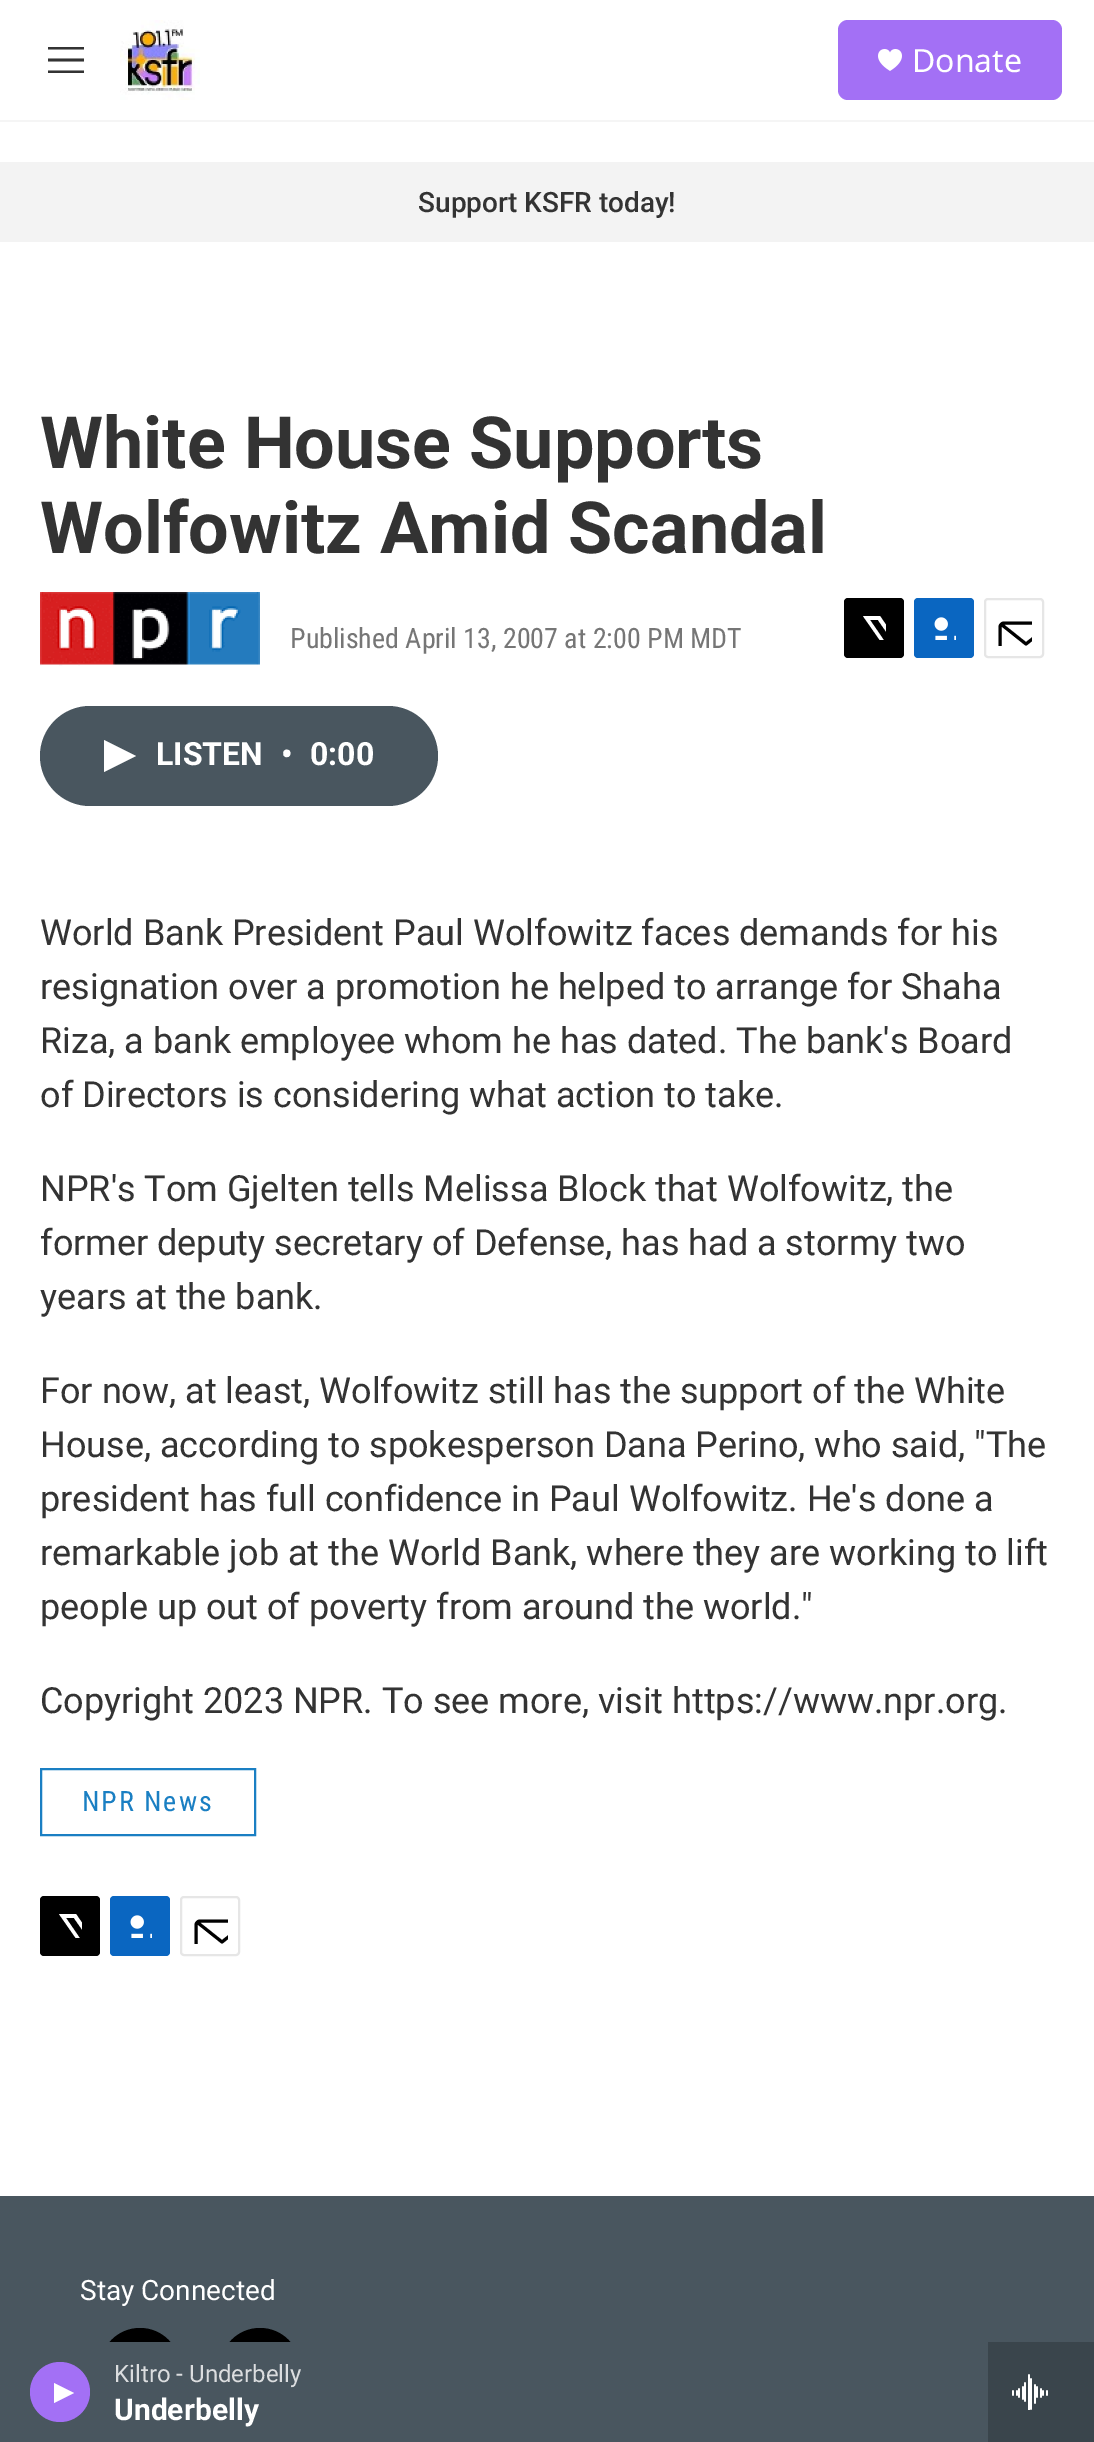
%!PS
<< /PageSize [1094 2442] >> setpagedevice
/rgb { dup -16 bitshift 255 div exch dup -8 bitshift 255 and 255 div exch 255 and 255 div setrgbcolor } def
/font { [ exch dup neg 0 0 3 -1 roll 0 0 ] selectfont } def
/text { moveto show } def
/circle { newpath 0 360 arc closepath } def
/roundrect { 5 dict begin { /r /h /w /y /x } { exch def } forall
  x r add y moveto x w add y 2 copy h add r arct x w add y h add x 1 index r arct
  x y h add x y r arct x y 2 copy exch w add exch r arct closepath end } def
/picture { 5 dict begin { /h /w /y /x /name } { exch def } forall
  gsave x y translate w h scale
  w h 8 [w 0 0 h 0 0] name (r) file false 3 colorimage grestore end } def
0 2442 translate 1 -1 scale
4 setmiterlimit
/s1 { /NotoSans-Regular 32 font 16#FFFFFF rgb } def
/s2 { /Roboto-Regular 24 font 16#DBDDDF rgb } def
/s3 { /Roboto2-Bold 30 font 16#FFFFFF rgb } def
/s4 { /Roboto-Medium 28 font 16#333333 rgb } def
/s5 { /Roboto-Bold 72 font 16#333333 rgb } def
/s6 { /RobotoCondensed-Regular 28 font 16#767676 rgb } def
/s7 { /Roboto2-Bold 32 font 16#FFFFFF rgb } def
/s8 { /Roboto-Regular 36 font 16#333333 rgb } def
/s9 { /Roboto-Regular 28 font 16#FFFFFF rgb } def
16#FFFFFF rgb
0 0 1094 2442 rectfill
16#F5F5F5 rgb
0 120 1094 2 rectfill
16#333333 rgb
48 61.5 moveto 48 58.5 lineto 84 58.5 lineto 84 61.5 lineto closepath 48 49.5 moveto 48 47 lineto 84 47 lineto 84 49.5 lineto closepath 48 73 moveto 48 70.5 lineto 84 70.5 lineto 84 73 lineto closepath eofill
(pic1.raw) 120 20 80 80 picture
16#A370F5 rgb
838 20 224 80 10 roundrect fill
(pic2.raw) 878 49 24 22 picture
s1
(Donate) 912 72 text
16#49565F rgb
0 2196 1094 146 rectfill
16#000000 rgb
140 2368 40 circle fill
260 2368 40 circle fill
16#49565F rgb
0 2342 988 100 rectfill
16#A370F5 rgb
60 2392 30 circle fill
16#FFFFFF rgb
54 2383 moveto 74 2393 lineto 54 2403 lineto closepath fill
s2
(Kiltro - Underbelly) 114 2382 text
s3
(Underbelly) 114 2420 text
16#3A454C rgb
988 2342 106 100 rectfill
(pic3.raw) 1012 2374 36 36 picture
16#F3F3F3 rgb
0 162 1094 80 rectfill
s4
(Support KSFR today!) 418 212 text
s5
(White House Supports) 40 468 text
(Wolfowitz Amid Scandal) 40 553 text
(pic4.raw) 40 592 220 74 picture
s6
(Published April 13, 2007 at 2:00 PM MDT) 290 648 text
16#000000 rgb
844 598 60 60 4 roundrect fill
gsave
862 616 24 24 rectclip
16#FFFFFF rgb
898 641 moveto 904 650 lineto 904 652 905 655 903 656 curveto 878 620 lineto 870 620 lineto 896 658 lineto 891 658 lineto 888 653 lineto 884 658 lineto 878 658 lineto 886 649 lineto 863 616 lineto 880 616 lineto 895 638 lineto 904 628 lineto 904 634 lineto closepath fill
grestore
16#0A66C1 rgb
914 598 60 60 4 roundrect fill
(pic5.raw) 934 617 22 23 picture
16#E6E6E6 rgb
2 setlinewidth
985 599 58 58 3 roundrect stroke
gsave
996 610 36 36 rectclip
16#000000 rgb
3 setlinewidth
1 setlinecap
1 setlinejoin
1052 654 moveto 1052 656 1050 657.5 1048 657.5 curveto 1004 657.5 lineto 1002 657.5 1000 656 1000 654 curveto 1000 627 lineto 1000 625 1002 623 1004 623 curveto 1048 623 lineto 1050 623 1052 625 1052 627 curveto closepath 1050.5 624.5 moveto 1026 644 lineto 1001.5 624.5 lineto stroke
grestore
16#49565F rgb
40 706 398 100 50 roundrect fill
16#FFFFFF rgb
104 740 moveto 136 756 lineto 104 772 lineto closepath fill
s7
(LISTEN) 156 765 text
(•) 281 765 text
(0:00) 310 765 text
s8
(World Bank President Paul Wolfowitz faces demands for his) 40 945 text
(resignation over a promotion he helped to arrange for Shaha) 40 999 text
(Riza, a bank employee whom he has dated. The bank's Board) 40 1053 text
(of Directors is considering what action to take.) 40 1107 text
(NPR's Tom Gjelten tells Melissa Block that Wolfowitz, the) 40 1201 text
(former deputy secretary of Defense, has had a stormy two) 40 1255 text
(years at the bank.) 40 1309 text
(For now, at least, Wolfowitz still has the support of the White) 40 1403 text
(House, according to spokesperson Dana Perino, who said, "The) 40 1457 text
(president has full confidence in Paul Wolfowitz. He's done a) 40 1511 text
(remarkable job at the World Bank, where they are working to lift) 40 1565 text
(people up out of poverty from around the world.") 40 1619 text
(Copyright 2023 NPR. To see more, visit https://www.npr.org.) 40 1713 text
16#1A7FC3 rgb
41 1769 214 66 rectstroke
/RobotoCondensed-Regular 28 font
82 1811 moveto 2 0 (NPR News) ashow
16#000000 rgb
40 1896 60 60 4 roundrect fill
gsave
58 1914 24 24 rectclip
16#FFFFFF rgb
94 1939 moveto 100 1948 lineto 100 1950 101 1953 99 1954 curveto 74 1918 lineto 66 1918 lineto 92 1956 lineto 87 1956 lineto 84 1951 lineto 80 1956 lineto 74 1956 lineto 82 1947 lineto 59 1914 lineto 76 1914 lineto 91 1936 lineto 100 1926 lineto 100 1932 lineto closepath fill
grestore
16#0A66C1 rgb
110 1896 60 60 4 roundrect fill
(pic5.raw) 130 1915 22 23 picture
16#E6E6E6 rgb
181 1897 58 58 3 roundrect stroke
gsave
192 1908 36 36 rectclip
16#000000 rgb
3 setlinewidth
1 setlinecap
1 setlinejoin
248 1952 moveto 248 1954 246 1955.5 244 1955.5 curveto 200 1955.5 lineto 198 1955.5 196 1954 196 1952 curveto 196 1925 lineto 196 1923 198 1921 200 1921 curveto 244 1921 lineto 246 1921 248 1923 248 1925 curveto closepath 246.5 1922.5 moveto 222 1942 lineto 197.5 1922.5 lineto stroke
grestore
s9
(Stay Connected) 80 2300 text
showpage
